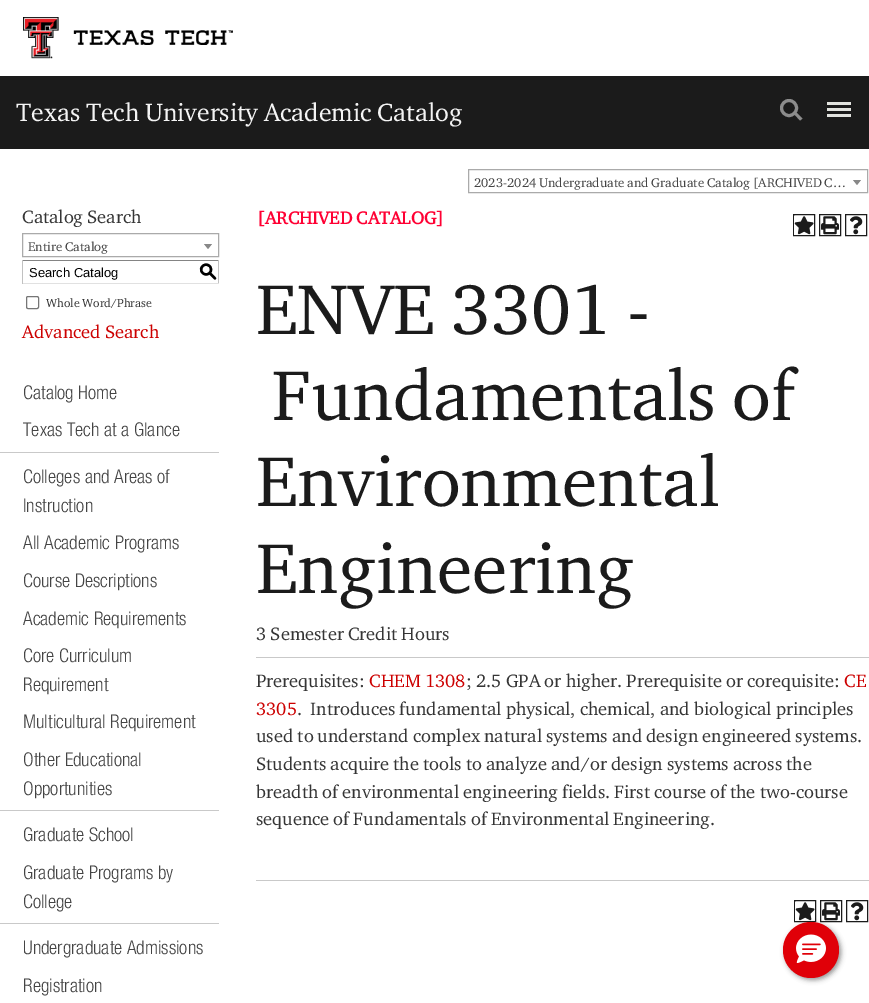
%!PS
<< /PageSize [869 1003] /PageUsesTransparency true >> setpagedevice
/rgb { dup -16 bitshift 255 div exch dup -8 bitshift 255 and 255 div exch 255 and 255 div setrgbcolor } def
/font { [ exch dup neg 0 0 3 -1 roll 0 0 ] selectfont } def
/text { moveto show } def
/alpha { dup .setfillconstantalpha .setstrokeconstantalpha } def
/circle { newpath 0 360 arc closepath } def
/roundrect { 5 dict begin { /r /h /w /y /x } { exch def } forall
  x r add y moveto x w add y 2 copy h add r arct x w add y h add x 1 index r arct
  x y h add x y r arct x y 2 copy exch w add exch r arct closepath end } def
/shadow { 12 dict begin { /a /b /q /h /w /y /x } { exch def } forall gsave /was 0 def
  9 -2 -9 { dup b mul 4 div /e exch def 1 sub .425 mul 2.718 exch exp 1 add a .99 .min exch div /now exch def
    1 1 now sub 1 was sub div sub alpha /was now def
    w h .min e 2 mul add 0 gt { x e sub y e sub w e 2 mul add h e 2 mul add
      q e add b .6 mul add w h .min 2 div e add .min 0 .max roundrect fill } if } for grestore end } def
/picture { 5 dict begin { /h /w /y /x /name } { exch def } forall
  gsave x y translate w h scale
  w h 8 [w 0 0 h 0 0] name (r) file false 3 colorimage grestore end } def
0 .pushpdf14devicefilter
0 1003 translate 1 -1 scale
4 setmiterlimit
/s1 { /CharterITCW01-Regular 25.6 font 16#F4F4F4 rgb } def
/s2 { /CharterITCW01-Regular 13 font 16#444444 rgb } def
/s3 { /CharterITCW01-Regular 18.4 font 16#353535 rgb } def
/s4 { /LiberationSans-Regular 13 font 16#000000 rgb } def
/s5 { /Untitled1-Medium 18 font 16#000000 rgb } def
/s6 { /CharterITCW01-Regular 12 font 16#353535 rgb } def
/s7 { /CharterITCW01-Regular 18.4 font 16#CC0000 rgb } def
/s8 { /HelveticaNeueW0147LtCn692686-Regular 19 font 16#444444 rgb } def
/s9 { /CharterITCW01-Bold 18 font 16#FF0033 rgb } def
/s10 { /CharterITCW01-Regular 72 font 16#1B1B1B rgb } def
16#FFFFFF rgb
0 0 869 1003 rectfill
(pic1.raw) 23 17 210 42 picture
16#1B1B1B rgb
0 76 869 73 rectfill
s1
(Texas Tech University Academic Catalog) 16 121 text
16#8C8C8C rgb
3 setlinewidth
789 108 7.5 circle stroke
796.5 112.5 moveto 802.5 118.5 lineto 800 120.5 lineto 794.5 114.5 lineto closepath fill
16#E2E3DF rgb
827 108 24 3 rectfill
827 102 24 3 rectfill
827 114 24 3 rectfill
16#AAAAAA rgb
1 setlinewidth
468.5 169.5 399 23 rectstroke
s2
(2023-2024 Undergraduate and Graduate Catalog [ARCHIVED C…) 474 187 text
16#888888 rgb
853 180 moveto 861 180 lineto 857 185 lineto closepath fill
s3
(Catalog Search) 22 223 text
16#AAAAAA rgb
22.5 233.5 196 23 rectstroke
s2
(Entire Catalog) 28 251 text
16#888888 rgb
204 244 moveto 212 244 lineto 208 249 lineto closepath fill
16#848484 rgb
22 260 197 1 rectfill
16#C1C1C1 rgb
218 260 1 24 rectfill
16#E1E1E1 rgb
22 283 197 1 rectfill
16#C1C1C1 rgb
22 260 1 24 rectfill
s4
(Search Catalog) 29 277 text
s5
(S) 199 277 text
16#767676 rgb
26.5 296.5 12 12 1.5 roundrect stroke
s6
(Whole Word/Phrase) 46 307 text
s7
(Advanced Search) 22 338 text
s8
(Catalog Home) 23 399 text
(Texas Tech at a Glance) 23 436 text
16#C9C9C9 rgb
0 452 219 1 rectfill
s8
(Colleges and Areas of) 23 483 text
(Instruction) 23 512 text
(All Academic Programs) 23 549 text
(Course Descriptions) 23 587 text
(Academic Requirements) 23 625 text
(Core Curriculum) 23 662 text
(Requirement) 23 691 text
(Multicultural Requirement) 23 728 text
(Other Educational) 23 766 text
(Opportunities) 23 795 text
16#C9C9C9 rgb
0 810 219 1 rectfill
s8
(Graduate School) 23 841 text
(Graduate Programs by) 23 879 text
(College) 23 908 text
16#C9C9C9 rgb
0 923 219 1 rectfill
s8
(Undergraduate Admissions) 23 954 text
(Registration) 23 992 text
s9
([ARCHIVED CATALOG]) 257 224 text
16#1B1B1B rgb
793.5 214.5 21 21 rectstroke
(pic2.raw) 794 216 20 19 picture
819.5 214.5 21 21 rectstroke
(pic3.raw) 821 216 18 19 picture
845.5 214.5 21 21 rectstroke
(pic4.raw) 850 216 13 19 picture
s10
(ENVE 3301 -) 256 334 text
(Fundamentals of) 272 420 text
(Environmental) 256 506 text
(Engineering) 256 593 text
s3
(3 Semester Credit Hours) 256 640 text
16#C9C9C9 rgb
256 657 613 1 rectfill
s3
(Prerequisites:) 256 687 text
s7
(CHEM 1308) 369 687 text
s3
(; 2.5 GPA or higher. Prerequisite or corequisite:) 466 687 text
s7
(CE) 844 687 text
(3305) 256 715 text
s3
(.  Introduces fundamental physical, chemical, and biological principles) 297 715 text
(used to understand complex natural systems and design engineered systems.) 256 742 text
(Students acquire the tools to analyze and/or design systems across the) 256 770 text
(breadth of environmental engineering fields. First course of the two-course) 256 798 text
(sequence of Fundamentals of Environmental Engineering.) 256 825 text
16#C9C9C9 rgb
256 880 613 1 rectfill
16#1B1B1B rgb
794.5 900.5 21 21 rectstroke
(pic2.raw) 795 902 20 19 picture
820.5 900.5 21 21 rectstroke
(pic3.raw) 822 902 18 19 picture
846.5 900.5 21 21 rectstroke
(pic4.raw) 851 902 13 19 picture
16#2D2D2D rgb
785 924 56 56 28 2.5 0.5 shadow
16#E00008 rgb
811 950 28 circle fill
(pic5.raw) 796 934 30 29 picture
.poppdf14devicefilter showpage
